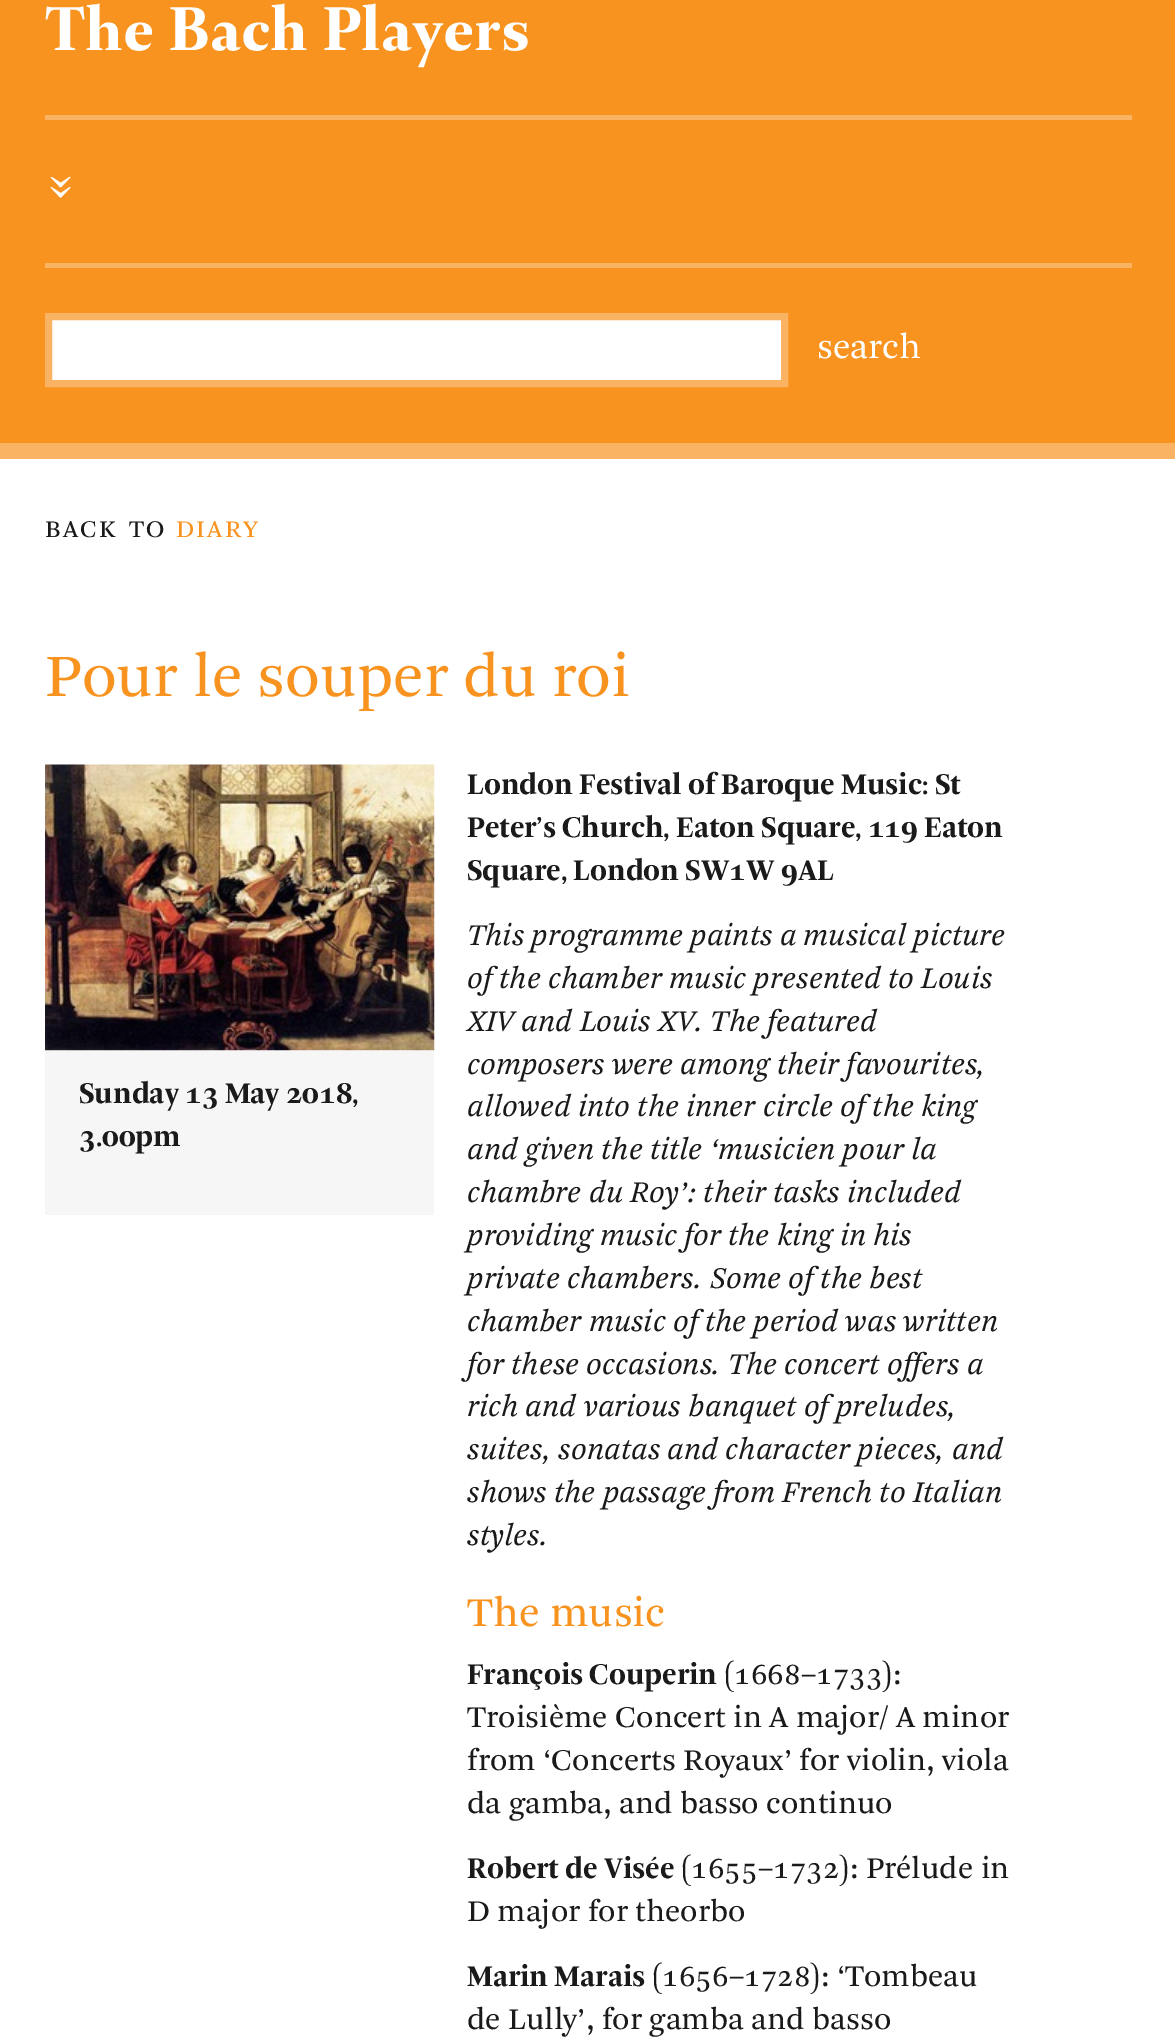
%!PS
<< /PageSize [1175 2037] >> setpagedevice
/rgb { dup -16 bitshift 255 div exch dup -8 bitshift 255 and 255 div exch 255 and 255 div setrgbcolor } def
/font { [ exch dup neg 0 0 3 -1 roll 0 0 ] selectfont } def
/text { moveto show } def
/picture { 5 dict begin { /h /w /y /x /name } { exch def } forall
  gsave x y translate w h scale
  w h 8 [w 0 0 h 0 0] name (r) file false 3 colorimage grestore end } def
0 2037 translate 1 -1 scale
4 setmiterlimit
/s1 { /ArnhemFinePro-Bold 74.25 font 16#FFFFFF rgb } def
/s2 { /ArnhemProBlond-Light 36 font 16#FFFFFF rgb } def
/s3 { /ArnhemProBlond-Light 63 font 16#F8931F rgb } def
/s4 { /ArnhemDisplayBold-Bold 31.5 font 16#1A1A1A rgb } def
/s5 { /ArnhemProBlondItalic-LightItalic 31.5 font 16#1A1A1A rgb } def
/s6 { /ArnhemProBlond-Light 42.75 font 16#F8931F rgb } def
/s7 { /ArnhemProBlond-Light 31.5 font 16#1A1A1A rgb } def
16#FFFFFF rgb
0 0 1175 2037 rectfill
16#F8931F rgb
0 0 1175 443 rectfill
16#FAB363 rgb
0 443 1175 16 rectfill
s1
(The Bach Players) 45 50 text
16#FAB363 rgb
45 115 1087 5 rectfill
/ArnhemProBlond-Light 61 font
16#FFFFFF rgb
gsave 44 175 translate 90 rotate 0 0 moveto (») show grestore
16#FAB363 rgb
45 263 1087 5 rectfill
16#FFFFFF rgb
48.5 316.5 moveto 784.5 316.5 lineto 784.5 383.5 lineto 48.5 383.5 lineto closepath gsave fill grestore
16#FAB363 rgb
7 setlinewidth
stroke
s2
(search) 817 358 text
/ArnhemProBlond-Light 25 font
16#1A1A1A rgb
45 537 moveto 2.25 0 (BACK) ashow
129 537 moveto 2.25 0 (TO) ashow
16#F8931F rgb
176 537 moveto 2.25 0 (DIARY) ashow
s3
(Pour le souper du roi) 45 696 text
(pic1.raw) 45 764 390 287 picture
16#F6F6F6 rgb
45 1051 389 164 rectfill
s4
(Sunday 13 May 2018,) 79 1103 text
(3.00pm) 79 1146 text
(London Festival of Baroque Music: St) 467 794 text
(Peter’s Church, Eaton Square, 119 Eaton) 467 837 text
(Square, London SW1W 9AL) 467 880 text
s5
(This programme paints a musical picture) 467 945 text
(of the chamber music presented to Louis) 467 988 text
(XIV and Louis XV. The featured) 467 1031 text
(composers were among their favourites,) 467 1074 text
(allowed into the inner circle of the king) 467 1116 text
(and given the title ‘musicien pour la) 467 1159 text
(chambre du Roy’: their tasks included) 467 1202 text
(providing music for the king in his) 467 1245 text
(private chambers. Some of the best) 467 1288 text
(chamber music of the period was written) 467 1331 text
(for these occasions. The concert offers a) 467 1374 text
(rich and various banquet of preludes,) 467 1416 text
(suites, sonatas and character pieces, and) 467 1459 text
(shows the passage from French to Italian) 467 1502 text
(styles.) 467 1545 text
s6
(The music) 467 1626 text
s4
(François Couperin) 467 1684 text
s7
(\(1668–1733\):) 724 1684 text
(Troisième Concert in A major/ A minor) 467 1727 text
(from ‘Concerts Royaux’ for violin, viola) 467 1770 text
(da gamba, and basso continuo) 467 1813 text
s4
(Robert de Visée) 467 1878 text
s7
(\(1655–1732\): Prélude in) 681 1878 text
(D major for theorbo) 467 1921 text
s4
(Marin Marais) 467 1986 text
s7
(\(1656–1728\): ‘Tombeau) 652 1986 text
(de Lully’, for gamba and basso) 467 2029 text
showpage
